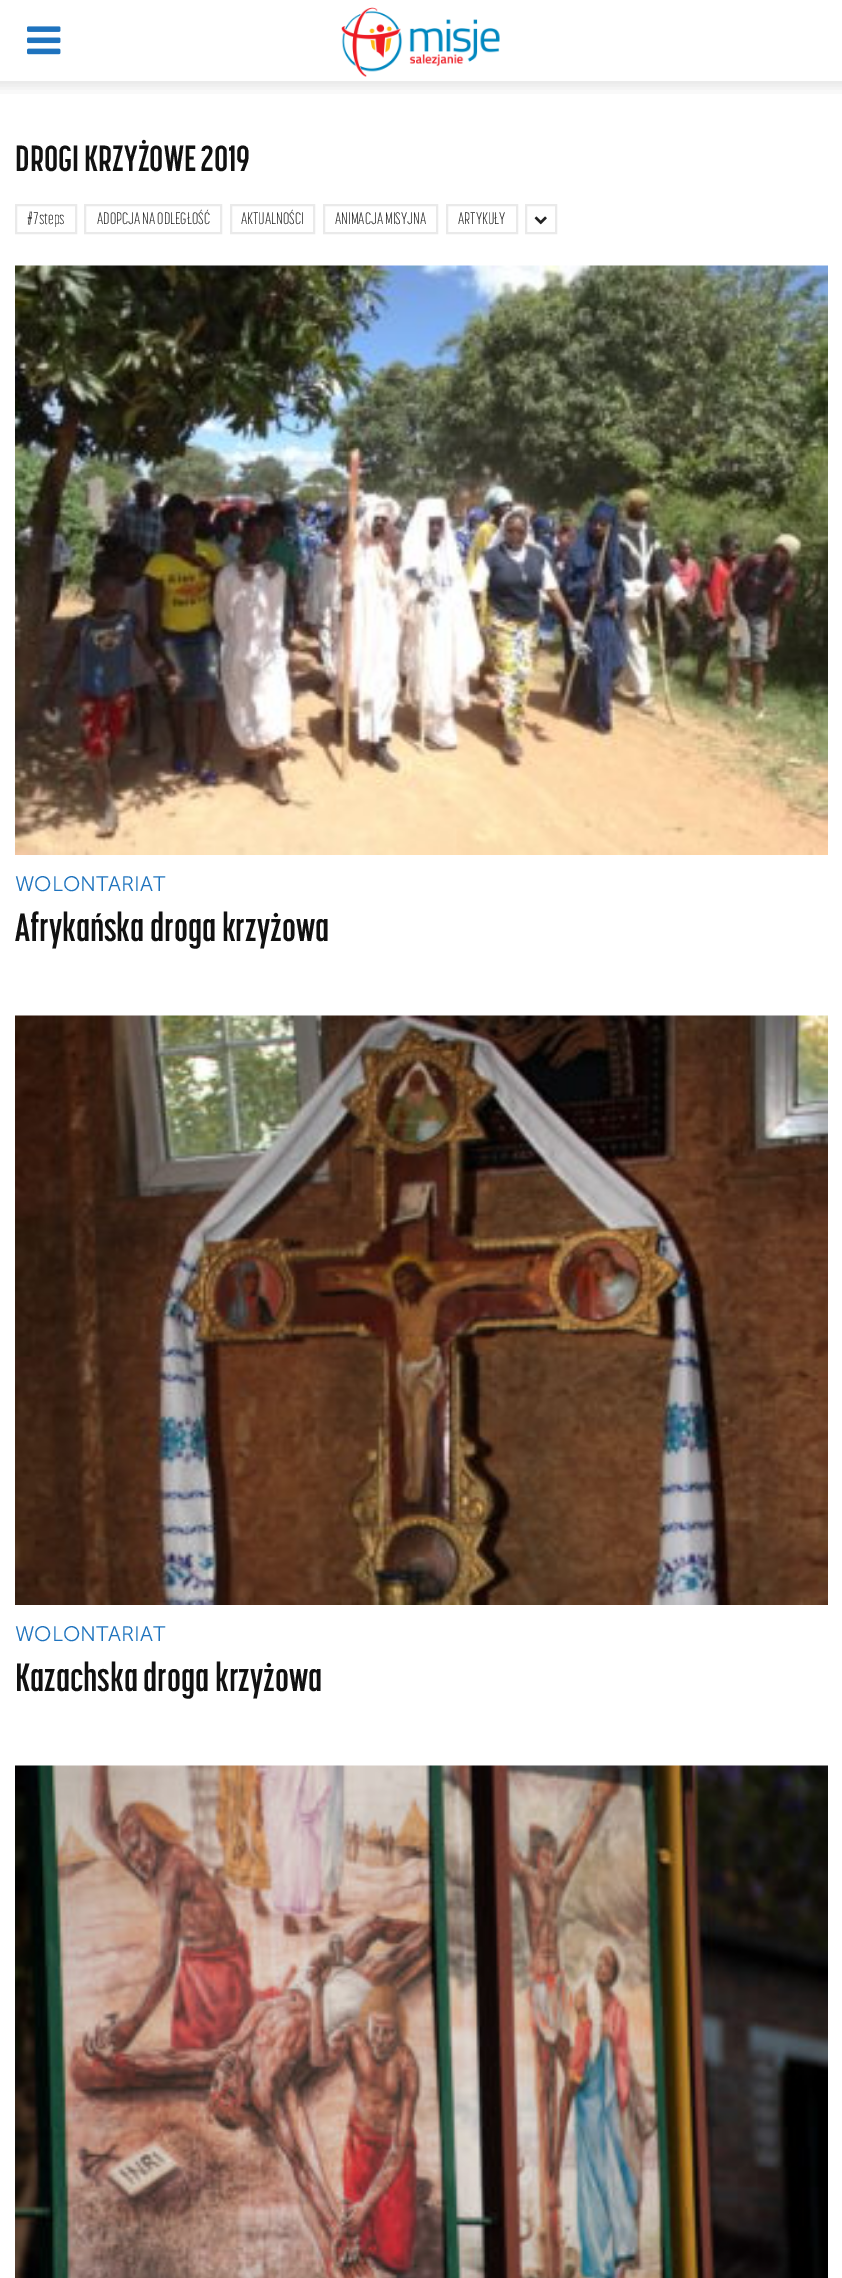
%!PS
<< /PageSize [842 2278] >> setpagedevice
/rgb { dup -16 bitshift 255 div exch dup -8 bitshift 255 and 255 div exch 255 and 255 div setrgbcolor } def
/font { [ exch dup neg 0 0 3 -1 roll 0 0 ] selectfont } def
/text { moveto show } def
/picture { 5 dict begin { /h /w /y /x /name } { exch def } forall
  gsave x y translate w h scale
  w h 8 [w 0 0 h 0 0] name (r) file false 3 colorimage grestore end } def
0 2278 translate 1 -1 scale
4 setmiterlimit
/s1 { /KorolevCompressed-Bold 36 font 16#111111 rgb } def
/s2 { /KorolevCompressed-Light 16.5 font 16#222222 rgb } def
/s3 { /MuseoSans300-Light 21 font 16#1E73BE rgb } def
/s4 { /KorolevCompressed-Bold 39 font 16#111111 rgb } def
16#FFFFFF rgb
0 0 842 2278 rectfill
(pic1.raw) 27 26 34 29 picture
(pic2.raw) 341 7 159 70 picture
(pic3.raw) 0 81 842 13 picture
s1
(DROGI KRZYŻOWE 2019) 15 171 text
16#EAEAEA rgb
2 setlinewidth
16 205 60 28 rectstroke
s2
(#7steps) 27 224 text
16#EAEAEA rgb
85 205 136 28 rectstroke
s2
(ADOPCJA NA ODLEGŁOŚĆ) 97 224 text
16#EAEAEA rgb
231 205 83 28 rectstroke
s2
(AKTUALNOŚCI) 241 224 text
16#EAEAEA rgb
324 205 113 28 rectstroke
s2
(ANIMACJA MISYJNA) 335 224 text
16#EAEAEA rgb
447 205 70 28 rectstroke
s2
(ARTYKUŁY) 458 224 text
16#EAEAEA rgb
526 205 30 28 rectstroke
(pic4.raw) 534 216 13 9 picture
(pic5.raw) 15 265 813 590 picture
s3
(WOLONTARIAT) 15 891 text
s4
(Afrykańska droga krzyżowa) 15 941 text
(pic6.raw) 15 1015 813 590 picture
s3
(WOLONTARIAT) 15 1641 text
s4
(Kazachska droga krzyżowa) 15 1691 text
(pic7.raw) 15 1765 813 513 picture
showpage
